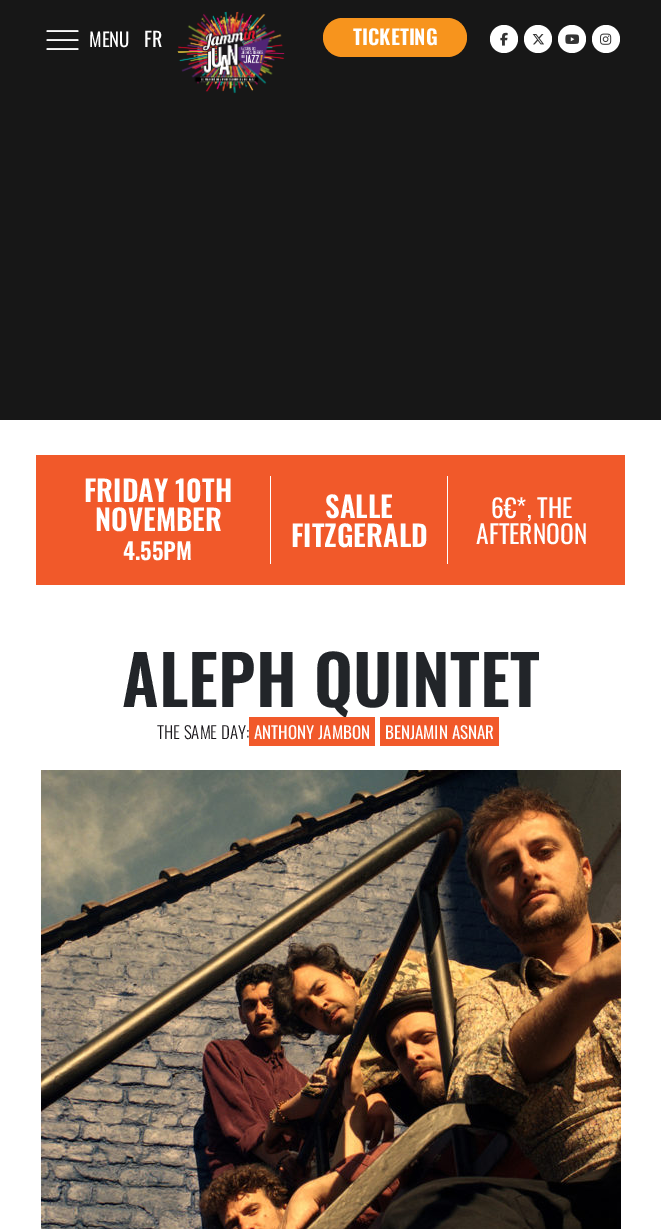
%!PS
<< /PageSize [661 1229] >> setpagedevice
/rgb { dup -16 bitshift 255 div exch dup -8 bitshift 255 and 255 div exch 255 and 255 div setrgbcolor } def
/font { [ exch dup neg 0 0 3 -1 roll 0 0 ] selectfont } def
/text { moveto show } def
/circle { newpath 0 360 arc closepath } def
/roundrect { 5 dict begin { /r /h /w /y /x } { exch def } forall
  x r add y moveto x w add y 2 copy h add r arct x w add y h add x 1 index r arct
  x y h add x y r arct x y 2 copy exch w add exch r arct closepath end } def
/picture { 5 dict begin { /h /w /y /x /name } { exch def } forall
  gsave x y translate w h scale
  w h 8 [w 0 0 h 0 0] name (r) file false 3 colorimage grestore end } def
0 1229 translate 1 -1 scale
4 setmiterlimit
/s1 { /Oswald-Regular 19 font 16#FFFFFF rgb } def
/s2 { /Oswald-Regular 20 font 16#FFFFFF rgb } def
/s3 { /Oswald-SemiBold 20.5 font 16#FFFFFF rgb } def
/s4 { /Oswald-SemiBold 29 font 16#FFFFFF rgb } def
/s5 { /Oswald-SemiBold 23 font 16#FFFFFF rgb } def
/s6 { /Oswald-Regular 25.5 font 16#FFFFFF rgb } def
/s7 { /Oswald-Light 17 font 16#1A171B rgb } def
/s8 { /Oswald-Regular 17 font 16#FFFFFF rgb } def
16#171717 rgb
0 0 661 1229 rectfill
(pic1.raw) 46 30 33 20 picture
s1
(MENU) 89 47 text
s2
(FR) 144 47 text
(pic2.raw) 177 11 108 83 picture
16#F7941D rgb
323 18 144 39 19.5 roundrect fill
s3
(TICKETING) 353 45 text
504 39 14 circle fill
(pic3.raw) 500 32 8 14 picture
538 39 14 circle fill
(pic4.raw) 532 34 12 11 picture
572 39 14 circle fill
(pic5.raw) 565 34 15 10 picture
606 39 14 circle fill
(pic6.raw) 600 33 12 12 picture
0 420 661 809 rectfill
16#F1592A rgb
36 455 589 130 rectfill
s4
(FRIDAY 10TH) 84 502 text
(NOVEMBER) 95 531 text
s5
(4.55PM) 123 560 text
447 476 1 88 rectfill
270 476 1 88 rectfill
s4
(SALLE) 325 518 text
(FITZGERALD) 291 547 text
s6
(6€*, THE) 491 518 text
(AFTERNOON) 476 544 text
/Oswald-SemiBold 68 font
16#222529 rgb
122 707 moveto 0.1 0 (ALEPH QUINTET) ashow
s7
(THE SAME DAY:) 157 739 text
16#F1592A rgb
249 717 126 29 rectfill
s8
(ANTHONY JAMBON) 254 739 text
16#F1592A rgb
380 717 119 29 rectfill
s8
(BENJAMIN ASNAR) 385 739 text
(pic7.raw) 41 770 580 459 picture
showpage
